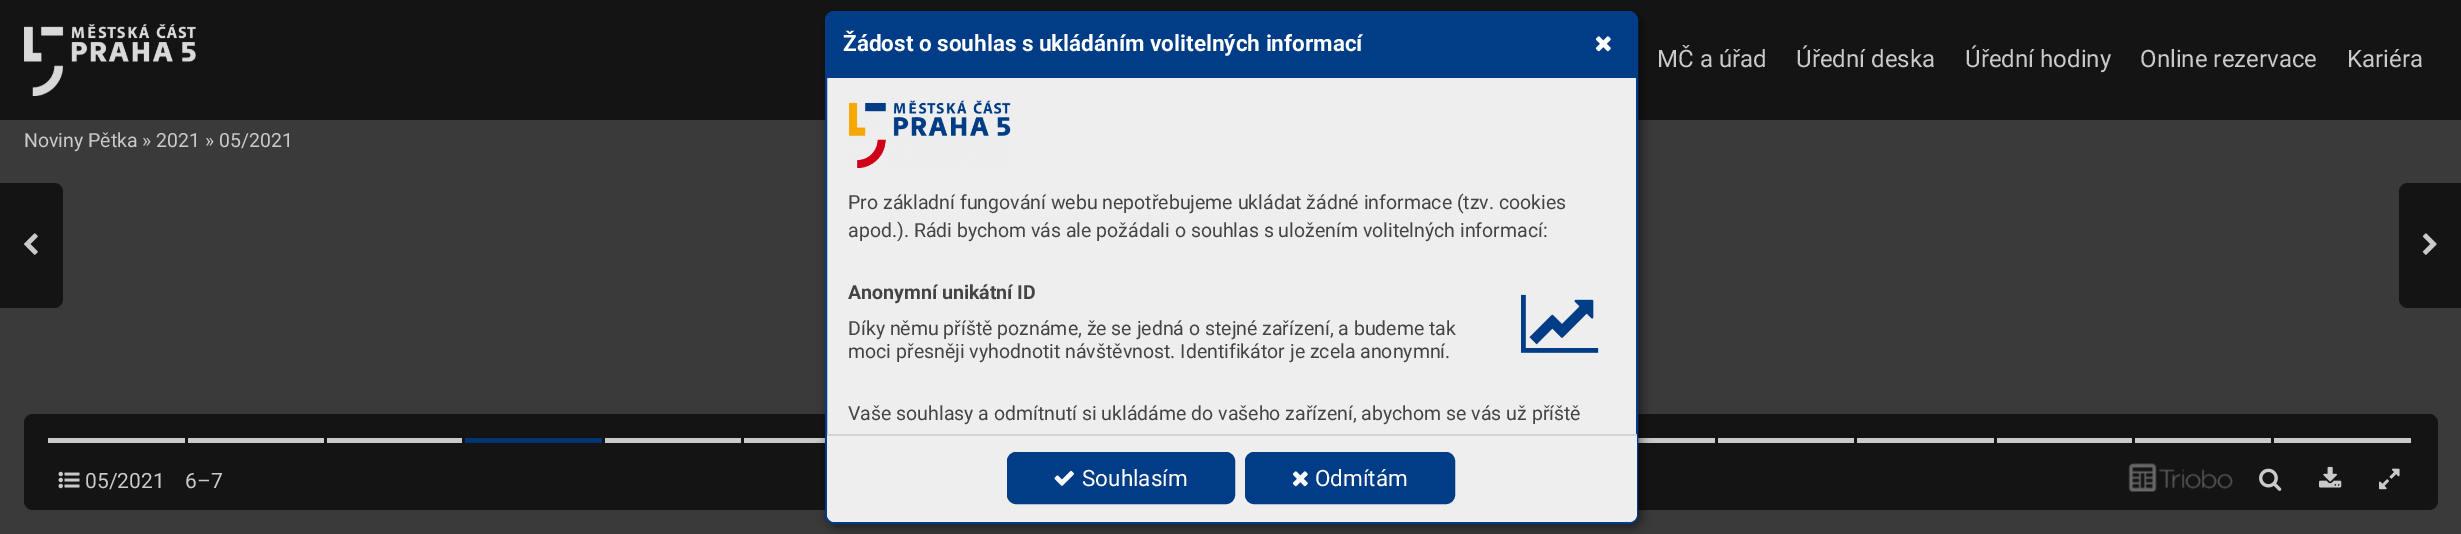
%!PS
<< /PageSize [2461 534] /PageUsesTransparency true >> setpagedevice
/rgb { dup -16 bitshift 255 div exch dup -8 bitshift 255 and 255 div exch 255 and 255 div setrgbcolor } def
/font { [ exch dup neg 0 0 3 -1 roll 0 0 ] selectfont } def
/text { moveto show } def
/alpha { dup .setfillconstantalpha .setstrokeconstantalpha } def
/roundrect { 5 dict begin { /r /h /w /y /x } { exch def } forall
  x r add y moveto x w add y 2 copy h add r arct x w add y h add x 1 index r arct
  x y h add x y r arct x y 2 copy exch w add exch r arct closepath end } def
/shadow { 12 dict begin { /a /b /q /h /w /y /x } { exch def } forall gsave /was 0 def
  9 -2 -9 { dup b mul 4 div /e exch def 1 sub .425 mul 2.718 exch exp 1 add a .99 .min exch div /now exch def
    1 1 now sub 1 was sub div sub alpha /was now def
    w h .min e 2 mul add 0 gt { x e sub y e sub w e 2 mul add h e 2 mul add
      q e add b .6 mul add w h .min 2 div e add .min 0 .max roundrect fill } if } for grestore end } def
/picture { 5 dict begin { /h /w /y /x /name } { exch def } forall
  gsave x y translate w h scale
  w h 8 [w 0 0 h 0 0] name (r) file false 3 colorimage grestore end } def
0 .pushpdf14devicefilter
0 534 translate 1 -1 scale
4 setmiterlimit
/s1 { /Roboto-Bold 22.5 font 16#FFFFFF rgb } def
/s2 { /Roboto-Regular 19.5 font 16#444444 rgb } def
/s3 { /Roboto-Bold 19.5 font 16#444444 rgb } def
/s4 { /Roboto-Regular 22.5 font 16#FFFFFF rgb } def
/s5 { /Roboto-Regular 24 font 16#CACACA rgb } def
/s6 { /Roboto-Regular 19.5 font 16#CACACA rgb } def
/s7 { /Roboto-Regular 21 font 16#CACACA rgb } def
16#3A3A3A rgb
0 0 2461 534 rectfill
16#141414 rgb
0 0 2461 120 rectfill
24 414 2414 96 9 roundrect fill
16#CACACA rgb
744 438 81 5 rectfill
1638 438 77 5 rectfill
16#000000 rgb
828 14 813 513 9 5.5 0.53 shadow
16#EEEEEE rgb
826 12 811 511 8 roundrect gsave fill grestore
16#013D86 rgb
2 setlinewidth
stroke
835 12 moveto 1629 12 lineto 1633.5 12 1637 15.5 1637 20 curveto 1637 78 lineto 827 78 lineto 827 20 lineto 827 15.5 830.5 12 835 12 curveto closepath fill
s1
(Žádost o souhlas s ukládáním volitelných informací) 843 51 text
(pic1.raw) 1595 36 16 16 picture
(pic2.raw) 849 100 162 68 picture
s2
(Pro základní fungování webu nepotřebujeme ukládat žádné informace \(tzv. cookies) 848 209 text
(apod.\). Rádi bychom vás ale požádali o souhlas s uložením volitelných informací:) 848 237 text
s3
(Anonymní unikátní ID) 848 299 text
(pic3.raw) 1521 294 78 59 picture
s2
(Díky němu příště poznáme, že se jedná o stejné zařízení, a budeme tak) 848 335 text
(moci přesněji vyhodnotit návštěvnost. Identifikátor je zcela anonymní.) 848 358 text
(Vaše souhlasy a odmítnutí si ukládáme do vašeho zařízení, abychom se vás už příště) 848 420 text
16#EEEEEE rgb
827 434 moveto 1637 434 lineto 1637 514 lineto 1637 518.5 1633.5 522 1629 522 curveto 835 522 lineto 830.5 522 827 518.5 827 514 curveto closepath fill
16#D3D3D3 rgb
827 434 810 2 rectfill
16#013D86 rgb
1008 453 226 50 8 roundrect gsave fill grestore
stroke
(pic4.raw) 1054 470 20 16 picture
s4
(Souhlasím) 1082 486 text
16#013D86 rgb
1246 453 208 50 8 roundrect gsave fill grestore
stroke
(pic1.raw) 1292 471 16 16 picture
s4
(Odmítám) 1315 486 text
(pic5.raw) 24 24 172 72 picture
s5
(MČ a úřad) 1657 67 text
(Úřední deska) 1796 67 text
(Úřední hodiny) 1965 67 text
(Online rezervace) 2140 67 text
(Kariéra) 2347 67 text
s6
(Noviny Pětka » 2021 » 05/2021) 24 147 text
16#141414 rgb
0 183 moveto 54 183 lineto 59 183 63 187 63 192 curveto 63 299 lineto 63 304 59 308 54 308 curveto 0 308 lineto closepath fill
(pic6.raw) 24 233 14 22 picture
2408 183 moveto 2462 183 lineto 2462 308 lineto 2408 308 lineto 2403 308 2399 304 2399 299 curveto 2399 192 lineto 2399 187 2403 183 2408 183 curveto closepath fill
(pic7.raw) 2422 233 15 22 picture
16#CACACA rgb
48 438 137 5 rectfill
188 438 136 5 rectfill
327 438 135 5 rectfill
605 438 136 5 rectfill
1718 438 136 5 rectfill
1857 438 137 5 rectfill
1997 438 135 5 rectfill
2135 438 136 5 rectfill
2274 438 137 5 rectfill
16#013472 rgb
465 438 137 5 rectfill
(pic8.raw) 58 471 22 18 picture
s7
(05/2021) 85 488 text
(6–7) 185 488 text
(pic9.raw) 2128 463 105 29 picture
(pic10.raw) 2259 468 23 23 picture
(pic11.raw) 2319 466 23 22 picture
(pic12.raw) 2379 468 21 22 picture
.poppdf14devicefilter showpage
